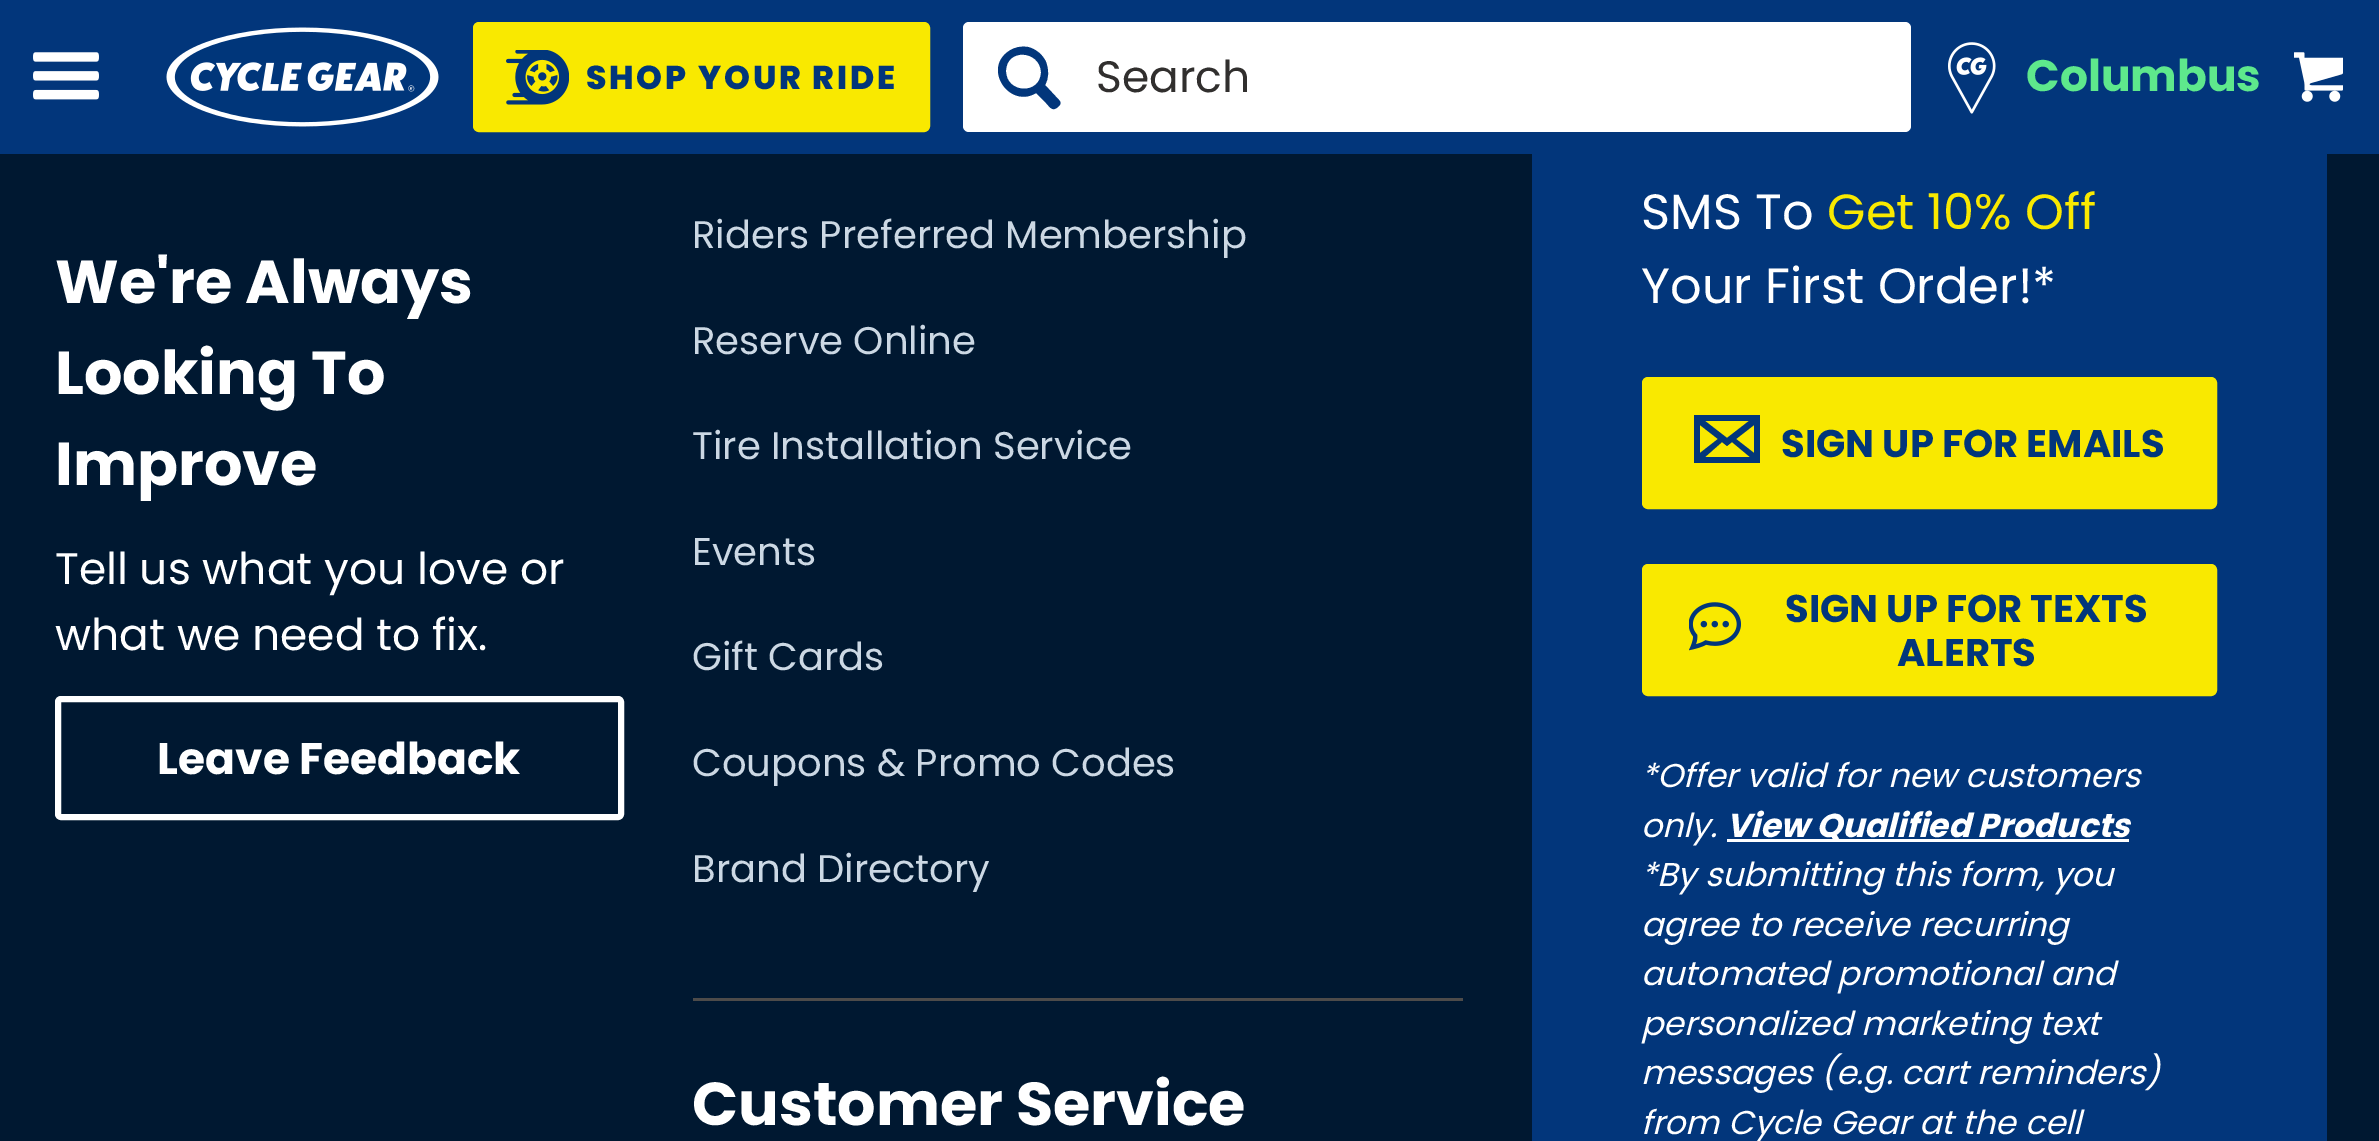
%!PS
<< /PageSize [2379 1141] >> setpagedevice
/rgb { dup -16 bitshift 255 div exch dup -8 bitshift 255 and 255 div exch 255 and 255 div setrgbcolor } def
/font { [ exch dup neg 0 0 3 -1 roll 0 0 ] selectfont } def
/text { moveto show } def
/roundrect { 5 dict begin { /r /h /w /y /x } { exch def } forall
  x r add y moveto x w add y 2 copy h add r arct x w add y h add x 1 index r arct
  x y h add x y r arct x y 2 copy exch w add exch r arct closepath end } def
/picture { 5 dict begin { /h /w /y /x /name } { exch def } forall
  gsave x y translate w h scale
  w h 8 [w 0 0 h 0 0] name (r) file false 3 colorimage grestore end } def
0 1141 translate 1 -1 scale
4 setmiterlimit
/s1 { /Poppins-Regular 44 font 16#312F2E rgb } def
/s2 { /Poppins-Bold 44 font 16#5EE88C rgb } def
/s3 { /Poppins-Bold 60.5 font 16#FFFFFF rgb } def
/s4 { /Poppins-Regular 44 font 16#FFFFFF rgb } def
/s5 { /Poppins-Bold 44 font 16#FFFFFF rgb } def
/s6 { /Poppins-Regular 38.5 font 16#CCD8E4 rgb } def
/s7 { /Poppins-Regular 49.5 font 16#FFFFFF rgb } def
/s8 { /Poppins-Regular 49.5 font 16#F9E900 rgb } def
/s9 { /Poppins-Bold 38.5 font 16#02367B rgb } def
/s10 { /Poppins-Italic 33 font 16#FFFFFF rgb } def
/s11 { /Poppins-BoldItalic 33 font 16#FFFFFF rgb } def
16#001831 rgb
0 0 2379 1141 rectfill
16#02367B rgb
0 0 2379 154 rectfill
(pic1.raw) 33 52 66 48 picture
(pic2.raw) 166 27 273 100 picture
16#F9E900 rgb
476 25 451 104 3 roundrect gsave fill grestore
6 setlinewidth
stroke
(pic3.raw) 506 50 63 55 picture
/Poppins-ExtraBold 33 font
16#02367B rgb
586 89 moveto 2.75 0 (SHOP YOUR RIDE) ashow
16#FFFFFF rgb
963 22 948 110 6 roundrect fill
16#02367B rgb
1059 100 moveto 1045 85 lineto 1049 78 1049 70 1046 62 curveto 1043 55 1036 49 1028 47 curveto 1021 46 1015 47 1009 51 curveto 982 69 1010 109 1036 93 curveto 1046 103 lineto 1050 107 1052 112 1058 107 curveto 1060 105 1062 103 1059 100 curveto closepath 1006 71 moveto 1006 48 1040 50 1041 72 curveto 1041 95 1006 94 1006 71 curveto closepath fill
s1
(Search) 1096 92 text
(pic4.raw) 1948 42 48 72 picture
s2
(Columbus) 2026 91 text
(pic5.raw) 2294 52 49 50 picture
s3
(We're Always) 55 303 text
(Looking To) 55 394 text
(Improve) 55 485 text
s4
(Tell us what you love or) 55 584 text
(what we need to fix.) 55 650 text
58 699 563 118 3 roundrect stroke
s5
(Leave Feedback) 157 774 text
s6
(Riders Preferred Membership) 692 248 text
(Reserve Online) 692 354 text
(Tire Installation Service) 692 459 text
(Events) 692 565 text
(Gift Cards) 692 670 text
(Coupons & Promo Codes) 692 776 text
(Brand Directory) 692 882 text
16#4D4B4A rgb
693 998 770 3 rectfill
s3
(Customer Service) 692 1125 text
16#02367B rgb
1532 154 795 987 rectfill
s7
(SMS To) 1641 229 text
s8
(Get 10% Off) 1827 229 text
s7
(Your First Order!*) 1641 303 text
16#F9E900 rgb
1645 380 569 126 3 roundrect gsave fill grestore
stroke
16#02367B rgb
1760 415 moveto 1760 463 lineto 1694 463 lineto 1694 415 lineto closepath 1700 425 moveto 1700 453 lineto 1718 439 lineto closepath 1754 453 moveto 1754 425 lineto 1736 439 lineto closepath 1705 457 moveto 1750 457 lineto 1732 442 lineto 1727 446 lineto 1722 442 lineto closepath 1749 421 moveto 1705 421 lineto 1727 438 lineto closepath fill
s9
(SIGN UP FOR EMAILS) 1781 457 text
16#F9E900 rgb
1645 567 569 126 3 roundrect gsave fill grestore
stroke
(pic6.raw) 1689 602 52 49 picture
s9
(SIGN UP FOR TEXTS) 1785 622 text
(ALERTS) 1897 666 text
s10
(*Offer valid for new customers) 1641 787 text
(only.) 1641 837 text
1727 839 402 3 rectfill
s11
(View Qualified Products) 1726 837 text
s10
(*By submitting this form, you) 1641 886 text
(agree to receive recurring) 1641 936 text
(automated promotional and) 1641 985 text
(personalized marketing text) 1641 1035 text
(messages \(e.g. cart reminders\)) 1641 1084 text
(from Cycle Gear at the cell) 1641 1134 text
showpage
